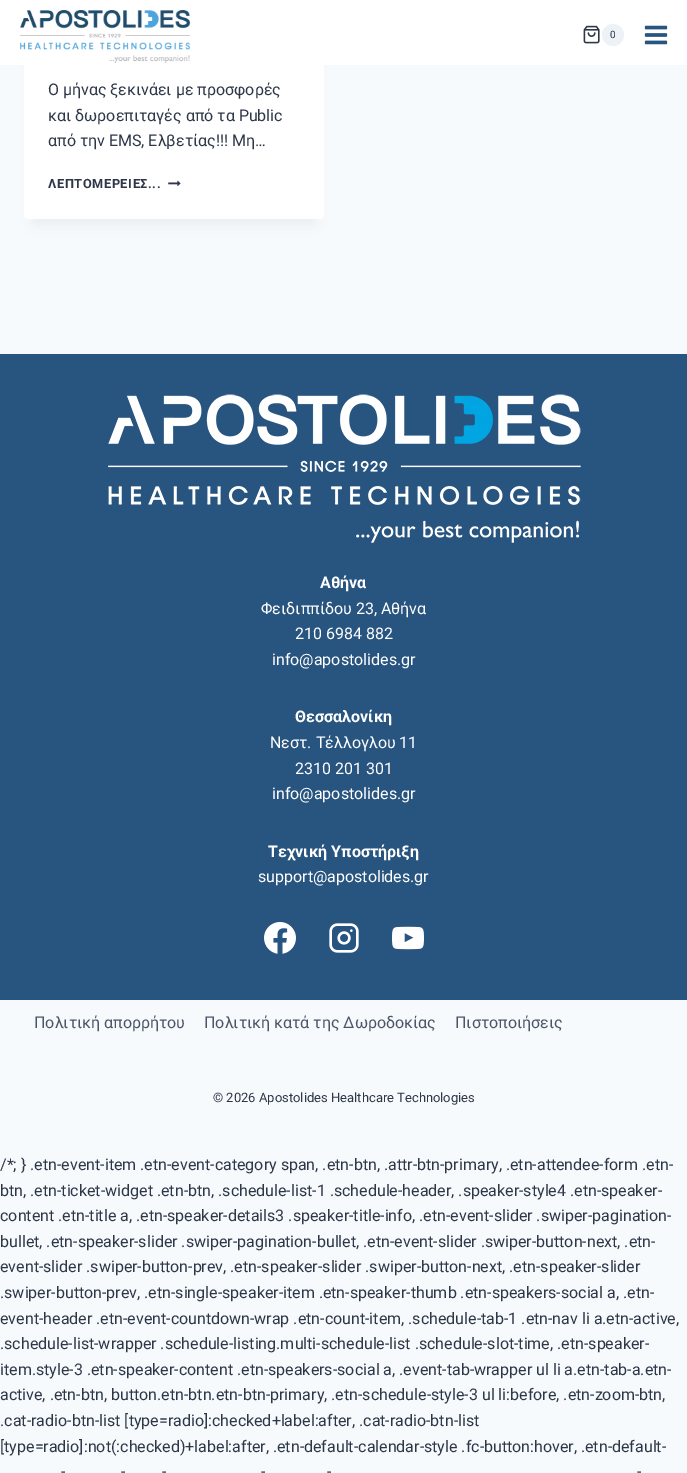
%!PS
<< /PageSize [687 1473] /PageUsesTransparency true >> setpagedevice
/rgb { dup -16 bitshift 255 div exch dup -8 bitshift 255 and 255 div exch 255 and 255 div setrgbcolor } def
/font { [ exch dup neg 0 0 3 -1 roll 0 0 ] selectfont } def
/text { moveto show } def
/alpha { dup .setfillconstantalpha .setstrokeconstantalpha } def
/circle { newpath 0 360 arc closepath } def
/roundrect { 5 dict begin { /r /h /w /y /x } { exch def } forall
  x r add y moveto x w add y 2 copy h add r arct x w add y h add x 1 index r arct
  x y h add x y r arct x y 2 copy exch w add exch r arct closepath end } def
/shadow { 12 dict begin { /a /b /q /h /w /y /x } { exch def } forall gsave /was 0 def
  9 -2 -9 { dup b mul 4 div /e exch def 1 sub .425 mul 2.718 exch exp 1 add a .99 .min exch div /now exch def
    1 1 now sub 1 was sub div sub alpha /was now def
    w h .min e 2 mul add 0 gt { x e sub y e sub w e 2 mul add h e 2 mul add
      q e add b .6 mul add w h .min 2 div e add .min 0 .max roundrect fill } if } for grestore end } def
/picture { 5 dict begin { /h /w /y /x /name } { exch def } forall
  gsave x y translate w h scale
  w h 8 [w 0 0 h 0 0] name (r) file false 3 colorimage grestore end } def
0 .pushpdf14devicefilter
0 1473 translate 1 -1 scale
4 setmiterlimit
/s1 { /Roboto-Regular 10 font 16#2D3748 rgb } def
/s2 { /Roboto-Regular 16 font 16#2D3748 rgb } def
/s3 { /Roboto-Bold 16 font 16#FFFFFF rgb } def
/s4 { /Roboto-Regular 16 font 16#FFFFFF rgb } def
/s5 { /Roboto-Regular 16 font 16#4A5568 rgb } def
/s6 { /Roboto-Regular 13 font 16#2D3748 rgb } def
16#F7FAFC rgb
0 0 687 1473 rectfill
16#000000 rgb
34 -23 280 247 0 7.5 0.05 shadow
16#FFFFFF rgb
24 -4 300 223 4 roundrect fill
0 0 687 65 rectfill
(pic1.raw) 20 10 170 53 picture
(pic2.raw) 583 25 17 19 picture
16#EDF2F7 rgb
613 35 11 circle fill
s1
(0) 610 38 text
(pic3.raw) 644 25 24 20 picture
s2
(Ο μήνας ξεκινάει με προσφορές) 48 95 text
(και δωροεπιταγές από τα Public) 48 121 text
(από την EMS, Ελβετίας!!! Μη…) 48 146 text
/Roboto-Bold 12.75 font
48 188 moveto 0.6 0 (ΛΕΠΤΟΜΕΡΕΙΕΣ...) ashow
(pic4.raw) 168 180 13 7 picture
16#285480 rgb
0 354 687 646 rectfill
(pic5.raw) 108 394 473 149 picture
s3
(Αθήνα) 320 588 text
s4
(Φειδιππίδου 23, Αθήνα) 261 614 text
(210 6984 882) 295 639 text
(info@apostolides.gr) 272 665 text
s3
(Θεσσαλονίκη) 295 722 text
s4
(Νεστ. Τέλλογλου 11) 270 748 text
(2310 201 301) 295 774 text
(info@apostolides.gr) 272 799 text
s3
(Τεχνική Υποστήριξη) 268 857 text
s4
(support@apostolides.gr) 258 882 text
(pic6.raw) 264 922 32 32 picture
(pic7.raw) 329 923 30 30 picture
(pic8.raw) 392 926 32 24 picture
s5
(Πολιτική απορρήτου) 34 1028 text
(Πολιτική κατά της Δωροδοκίας) 204 1028 text
(Πιστοποιήσεις) 455 1028 text
s6
(© 2026 Apostolides Healthcare Technologies) 213 1102 text
s2
(/*; } .etn-event-item .etn-event-category span, .etn-btn, .attr-btn-primary, .etn-attendee-form .etn-) 0 1170 text
(btn, .etn-ticket-widget .etn-btn, .schedule-list-1 .schedule-header, .speaker-style4 .etn-speaker-) 0 1196 text
(content .etn-title a, .etn-speaker-details3 .speaker-title-info, .etn-event-slider .swiper-pagination-) 0 1221 text
(bullet, .etn-speaker-slider .swiper-pagination-bullet, .etn-event-slider .swiper-button-next, .etn-) 0 1247 text
(event-slider .swiper-button-prev, .etn-speaker-slider .swiper-button-next, .etn-speaker-slider) 0 1272 text
(.swiper-button-prev, .etn-single-speaker-item .etn-speaker-thumb .etn-speakers-social a, .etn-) 0 1298 text
(event-header .etn-event-countdown-wrap .etn-count-item, .schedule-tab-1 .etn-nav li a.etn-active,) 0 1324 text
(.schedule-list-wrapper .schedule-listing.multi-schedule-list .schedule-slot-time, .etn-speaker-) 0 1349 text
(item.style-3 .etn-speaker-content .etn-speakers-social a, .event-tab-wrapper ul li a.etn-tab-a.etn-) 0 1375 text
(active, .etn-btn, button.etn-btn.etn-btn-primary, .etn-schedule-style-3 ul li:before, .etn-zoom-btn,) 0 1400 text
(.cat-radio-btn-list [type=radio]:checked+label:after, .cat-radio-btn-list) 0 1426 text
([type=radio]:not\(:checked\)+label:after, .etn-default-calendar-style .fc-button:hover, .etn-default-) 0 1452 text
(-) 61 1477 text
(-) 121 1477 text
(-) 162 1477 text
(-) 261 1477 text
(-) 327 1477 text
(-) 637 1477 text
.poppdf14devicefilter showpage
